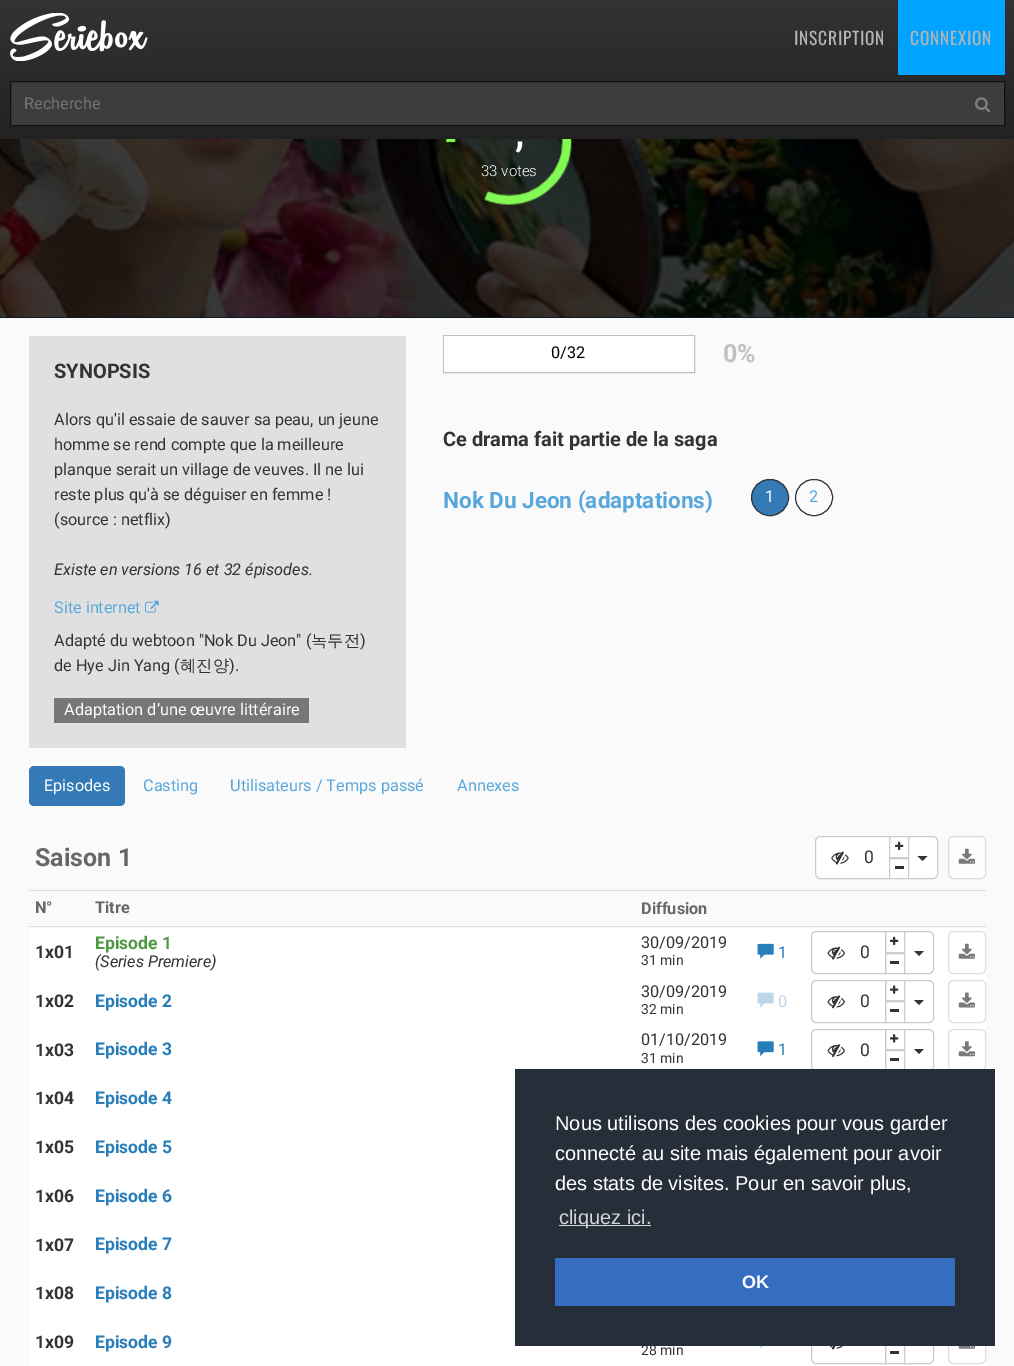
%!PS
<< /PageSize [1014 1366] >> setpagedevice
/rgb { dup -16 bitshift 255 div exch dup -8 bitshift 255 and 255 div exch 255 and 255 div setrgbcolor } def
/font { [ exch dup neg 0 0 3 -1 roll 0 0 ] selectfont } def
/text { moveto show } def
/roundrect { 5 dict begin { /r /h /w /y /x } { exch def } forall
  x r add y moveto x w add y 2 copy h add r arct x w add y h add x 1 index r arct
  x y h add x y r arct x y 2 copy exch w add exch r arct closepath end } def
/picture { 5 dict begin { /h /w /y /x /name } { exch def } forall
  gsave x y translate w h scale
  w h 8 [w 0 0 h 0 0] name (r) file false 3 colorimage grestore end } def
0 1366 translate 1 -1 scale
4 setmiterlimit
/s1 { /Roboto-Regular 16.25 font 16#757575 rgb } def
/s2 { /Roboto-Bold 38 font 16#FFFFFF rgb } def
/s3 { /Roboto-Light 15 font 16#FFFFFF rgb } def
/s4 { /Roboto-Bold 20 font 16#333333 rgb } def
/s5 { /Roboto-Regular 16.25 font 16#333333 rgb } def
/s6 { /Roboto-Italic 16.25 font 16#333333 rgb } def
/s7 { /Roboto-Regular 16.25 font 16#58A7DC rgb } def
/s8 { /WenQuanYiZenHei-Medium 16.25 font 16#333333 rgb } def
/s9 { /Roboto-Regular 16.25 font 16#FFFFFF rgb } def
/s10 { /Roboto-Regular 16.25 font 16#000000 rgb } def
/s11 { /Roboto-Bold 25 font 16#C0C0C0 rgb } def
/s12 { /Roboto-Bold 22.5 font 16#58A7DC rgb } def
/s13 { /Roboto-Bold 25 font 16#676767 rgb } def
/s14 { /Roboto-Regular 17.5 font 16#333333 rgb } def
/s15 { /Roboto-Bold 16.25 font 16#676767 rgb } def
/s16 { /Roboto-Bold 17.5 font 16#333333 rgb } def
/s17 { /Roboto-Bold 17.5 font 16#509844 rgb } def
/s18 { /Roboto-Regular 14 font 16#333333 rgb } def
/s19 { /Roboto-Regular 16.25 font 16#277EB8 rgb } def
/s20 { /Roboto-Bold 17.5 font 16#277EB8 rgb } def
/s21 { /Roboto-Regular 16.25 font 16#BCD7E9 rgb } def
/s22 { /LiberationSans-Regular 20 font 16#FFFFFF rgb } def
/s23 { /LiberationSans-Regular 20 font 16#D3D5D7 rgb } def
/s24 { /LiberationSans-Bold 18 font 16#FFFFFF rgb } def
16#FAFAFA rgb
0 0 1014 1366 rectfill
gsave 0 0 moveto 1014 0 lineto 1014 139 lineto 0 139 lineto closepath clip newpath
<< /ShadingType 2 /ColorSpace /DeviceRGB /Coords [508 0 508 139] /Extend [true true] /Function << /FunctionType 2 /Domain [0 1] /C0 [0.2 0.2 0.2] /C1 [0.133 0.133 0.133] /N 1 >> >> shfill grestore
(pic1.raw) 10 13 138 48 picture
/Oswald-Regular 17.5 font
16#B4B4B4 rgb
794 45 moveto 0.75 0 (INSCRIPTION) ashow
16#00A3FF rgb
898 0 107 75 rectfill
16#B4B4B4 rgb
910 45 moveto 0.75 0 (CONNEXION) ashow
16#3D3D3D rgb
10.5 81.5 moveto 1004.5 81.5 lineto 1004.5 125.5 lineto 10.5 125.5 lineto closepath gsave fill grestore
16#111111 rgb
stroke
s1
(Recherche) 24 109 text
(pic2.raw) 975 97 15 16 picture
16#0A1A27 rgb
0 317 1014 1 rectfill
(pic3.raw) 0 139 1014 178 picture
(pic4.raw) 446 139 126 66 picture
s2
(,) 515 146 text
s3
(33 votes) 481 176 text
16#E0E0E0 rgb
29 336 377 412 rectfill
s4
(SYNOPSIS) 54 378 text
s5
(Alors qu'il essaie de sauver sa peau, un jeune) 54 425 text
(homme se rend compte que la meilleure) 54 450 text
(planque serait un village de veuves. Il ne lui) 54 475 text
(reste plus qu'à se déguiser en femme !) 54 500 text
(\(source : netflix\)) 54 525 text
s6
(Existe en versions 16 et 32 épisodes.) 54 575 text
s7
(Site internet) 54 613 text
(pic5.raw) 145 600 14 13 picture
s5
(Adapté du webtoon "Nok Du Jeon" \() 54 646 text
s8
(녹두전) 311 646 text
s5
(\)) 360 646 text
(de Hye Jin Yang \() 54 671 text
s8
(혜진양) 180 671 text
s5
(\).) 229 671 text
16#777777 rgb
54 698 255 25 rectfill
s9
(Adaptation d’une œuvre littéraire) 64 715 text
16#C0C0C0 rgb
443.5 335.5 251 37 rectstroke
16#FFFFFF rgb
444 336 250 35 rectfill
s10
(0/32) 551 358 text
s11
(0%) 723 362 text
s4
(Ce drama fait partie de la saga) 443 446 text
s12
(Nok Du Jeon \(adaptations\)) 443 508 text
16#337AB7 rgb
751.5 479.5 37 36 18 roundrect gsave fill grestore
16#333333 rgb
stroke
s9
(1) 765 502 text
16#333333 rgb
795.5 479.5 37 36 18 roundrect stroke
s7
(2) 809 502 text
16#337AB7 rgb
29 766 96 40 5 roundrect fill
s9
(Episodes) 44 791 text
s7
(Casting) 143 791 text
(Utilisateurs / Temps passé) 230 791 text
(Annexes) 457 791 text
s13
(Saison 1) 35 866 text
16#DDDDDD rgb
29 890 957 1 rectfill
16#FFFFFF rgb
820 836.5 moveto 889.5 836.5 lineto 889.5 878.5 lineto 820 878.5 lineto 817.5 878.5 815.5 876.5 815.5 874 curveto 815.5 841 lineto 815.5 838.5 817.5 836.5 820 836.5 curveto closepath gsave fill grestore
16#CCCCCC rgb
stroke
(pic6.raw) 831 851 18 14 picture
s14
(0) 864 863 text
16#FFFFFF rgb
889.5 836.5 moveto 908.5 836.5 lineto 908.5 857.5 lineto 889.5 857.5 lineto closepath gsave fill grestore
16#CCCCCC rgb
stroke
(pic7.raw) 895 841 9 9 picture
16#FFFFFF rgb
889.5 858.5 moveto 908.5 858.5 lineto 908.5 878.5 lineto 889.5 878.5 lineto closepath gsave fill grestore
16#CCCCCC rgb
stroke
16#333333 rgb
895 866 9 3 rectfill
16#FFFFFF rgb
908.5 836.5 moveto 933 836.5 lineto 935.5 836.5 937.5 838.5 937.5 841 curveto 937.5 874 lineto 937.5 876.5 935.5 878.5 933 878.5 curveto 908.5 878.5 lineto closepath gsave fill grestore
16#CCCCCC rgb
stroke
16#333333 rgb
917.5 856 moveto 927.5 856 lineto 922.5 861 lineto closepath fill
16#FDFDFD rgb
948.5 836.5 37 42 4.5 roundrect gsave fill grestore
16#DCDCDC rgb
stroke
(pic8.raw) 958 848 17 16 picture
s15
(N°) 35 913 text
(Titre) 95 913 text
(Diffusion) 641 914 text
16#DDDDDD rgb
29 926 957 1 rectfill
16#FFFFFF rgb
29 928 957 146 rectfill
s16
(1x01) 35 958 text
s17
(Episode 1) 95 949 text
s6
(\(Series Premiere\)) 95 967 text
s5
(30/09/2019) 641 948 text
s18
(31 min) 641 965 text
(pic9.raw) 757 943 17 16 picture
s19
(1) 778 958 text
16#CCCCCC rgb
816 931.5 moveto 885.5 931.5 lineto 885.5 973.5 lineto 816 973.5 lineto 813.5 973.5 811.5 971.5 811.5 969 curveto 811.5 936 lineto 811.5 933.5 813.5 931.5 816 931.5 curveto closepath stroke
(pic10.raw) 827 946 18 14 picture
s14
(0) 860 958 text
16#CCCCCC rgb
885.5 931.5 19 21 rectstroke
(pic7.raw) 890 936 9 9 picture
885.5 953.5 19 20 rectstroke
16#333333 rgb
890 961 9 3 rectfill
16#FFFFFF rgb
904.5 931.5 moveto 929 931.5 lineto 931.5 931.5 933.5 933.5 933.5 936 curveto 933.5 969 lineto 933.5 971.5 931.5 973.5 929 973.5 curveto 904.5 973.5 lineto closepath gsave fill grestore
16#CCCCCC rgb
stroke
16#333333 rgb
914 951 moveto 924 951 lineto 919 956 lineto closepath fill
16#DEDEDE rgb
948.5 931.5 37 42 4.5 roundrect stroke
(pic11.raw) 958 943 17 16 picture
s16
(1x02) 35 1007 text
s20
(Episode 2) 95 1007 text
s5
(30/09/2019) 641 997 text
s18
(32 min) 641 1014 text
(pic12.raw) 757 992 17 16 picture
s21
(0) 778 1007 text
16#CCCCCC rgb
816 980.5 moveto 885.5 980.5 lineto 885.5 1022.5 lineto 816 1022.5 lineto 813.5 1022.5 811.5 1020.5 811.5 1018 curveto 811.5 985 lineto 811.5 982.5 813.5 980.5 816 980.5 curveto closepath stroke
(pic13.raw) 827 995 18 14 picture
s14
(0) 860 1007 text
16#CCCCCC rgb
885.5 980.5 19 20 rectstroke
(pic14.raw) 890 985 9 9 picture
885.5 1001.5 19 21 rectstroke
16#333333 rgb
890 1009 9 3 rectfill
16#FFFFFF rgb
904.5 980.5 moveto 929 980.5 lineto 931.5 980.5 933.5 982.5 933.5 985 curveto 933.5 1018 lineto 933.5 1020.5 931.5 1022.5 929 1022.5 curveto 904.5 1022.5 lineto closepath gsave fill grestore
16#CCCCCC rgb
stroke
16#333333 rgb
914 1000 moveto 924 1000 lineto 919 1005 lineto closepath fill
16#DEDEDE rgb
948.5 980.5 37 42 4.5 roundrect stroke
(pic15.raw) 958 992 17 16 picture
s16
(1x03) 35 1056 text
s20
(Episode 3) 95 1055 text
s5
(01/10/2019) 641 1045 text
s18
(31 min) 641 1063 text
(pic16.raw) 757 1041 17 16 picture
s19
(1) 778 1055 text
16#CCCCCC rgb
816 1029.5 moveto 885.5 1029.5 lineto 885.5 1070.5 lineto 816 1070.5 lineto 813.5 1070.5 811.5 1068.5 811.5 1066 curveto 811.5 1034 lineto 811.5 1031.5 813.5 1029.5 816 1029.5 curveto closepath stroke
(pic17.raw) 827 1044 18 14 picture
s14
(0) 860 1056 text
16#CCCCCC rgb
885.5 1029.5 19 20 rectstroke
(pic18.raw) 890 1034 9 9 picture
885.5 1050.5 19 20 rectstroke
16#333333 rgb
890 1058 9 3 rectfill
16#FFFFFF rgb
904.5 1029.5 moveto 929 1029.5 lineto 931.5 1029.5 933.5 1031.5 933.5 1034 curveto 933.5 1066 lineto 933.5 1068.5 931.5 1070.5 929 1070.5 curveto 904.5 1070.5 lineto closepath gsave fill grestore
16#CCCCCC rgb
stroke
16#333333 rgb
914 1049 moveto 924 1049 lineto 919 1054 lineto closepath fill
16#DEDEDE rgb
948.5 1029.5 37 41 4.5 roundrect stroke
(pic19.raw) 958 1041 17 16 picture
16#FFFFFF rgb
29 1074 486 244 rectfill
s16
(1x04) 35 1104 text
s20
(Episode 4) 95 1104 text
s16
(1x05) 35 1153 text
s20
(Episode 5) 95 1153 text
s16
(1x06) 35 1202 text
s20
(Episode 6) 95 1202 text
s16
(1x07) 35 1251 text
s20
(Episode 7) 95 1250 text
s16
(1x08) 35 1299 text
s20
(Episode 8) 95 1299 text
16#FFFFFF rgb
29 1318 957 48 rectfill
s16
(1x09) 35 1348 text
s20
(Episode 9) 95 1348 text
16#CCCCCC rgb
816 1321.5 moveto 885.5 1321.5 lineto 885.5 1363.5 lineto 816 1363.5 lineto 813.5 1363.5 811.5 1361.5 811.5 1359 curveto 811.5 1326 lineto 811.5 1323.5 813.5 1321.5 816 1321.5 curveto closepath stroke
(pic20.raw) 829 1346 14 4 picture
885.5 1343.5 19 20 rectstroke
16#333333 rgb
890 1351 9 3 rectfill
16#FFFFFF rgb
904.5 1321.5 moveto 929 1321.5 lineto 931.5 1321.5 933.5 1323.5 933.5 1326 curveto 933.5 1359 lineto 933.5 1361.5 931.5 1363.5 929 1363.5 curveto 904.5 1363.5 lineto closepath gsave fill grestore
16#CCCCCC rgb
stroke
16#DEDEDE rgb
948.5 1321.5 37 42 4.5 roundrect stroke
(pic21.raw) 958 1346 17 3 picture
s18
(28 min) 641 1355 text
(pic22.raw) 760 1346 3 3 picture
16#252E39 rgb
515 1069 480 277 rectfill
s22
(Nous utilisons des cookies pour vous garder) 555 1130 text
(connecté au site mais également pour avoir) 555 1160 text
(des stats de visites. Pour en savoir plus,) 555 1190 text
16#D3D5D7 rgb
559 1225 92 1 rectfill
(cliquez ici.) 559 1224 text
16#356EC1 rgb
555 1258 400 48 rectfill
s24
(OK) 742 1288 text
showpage
